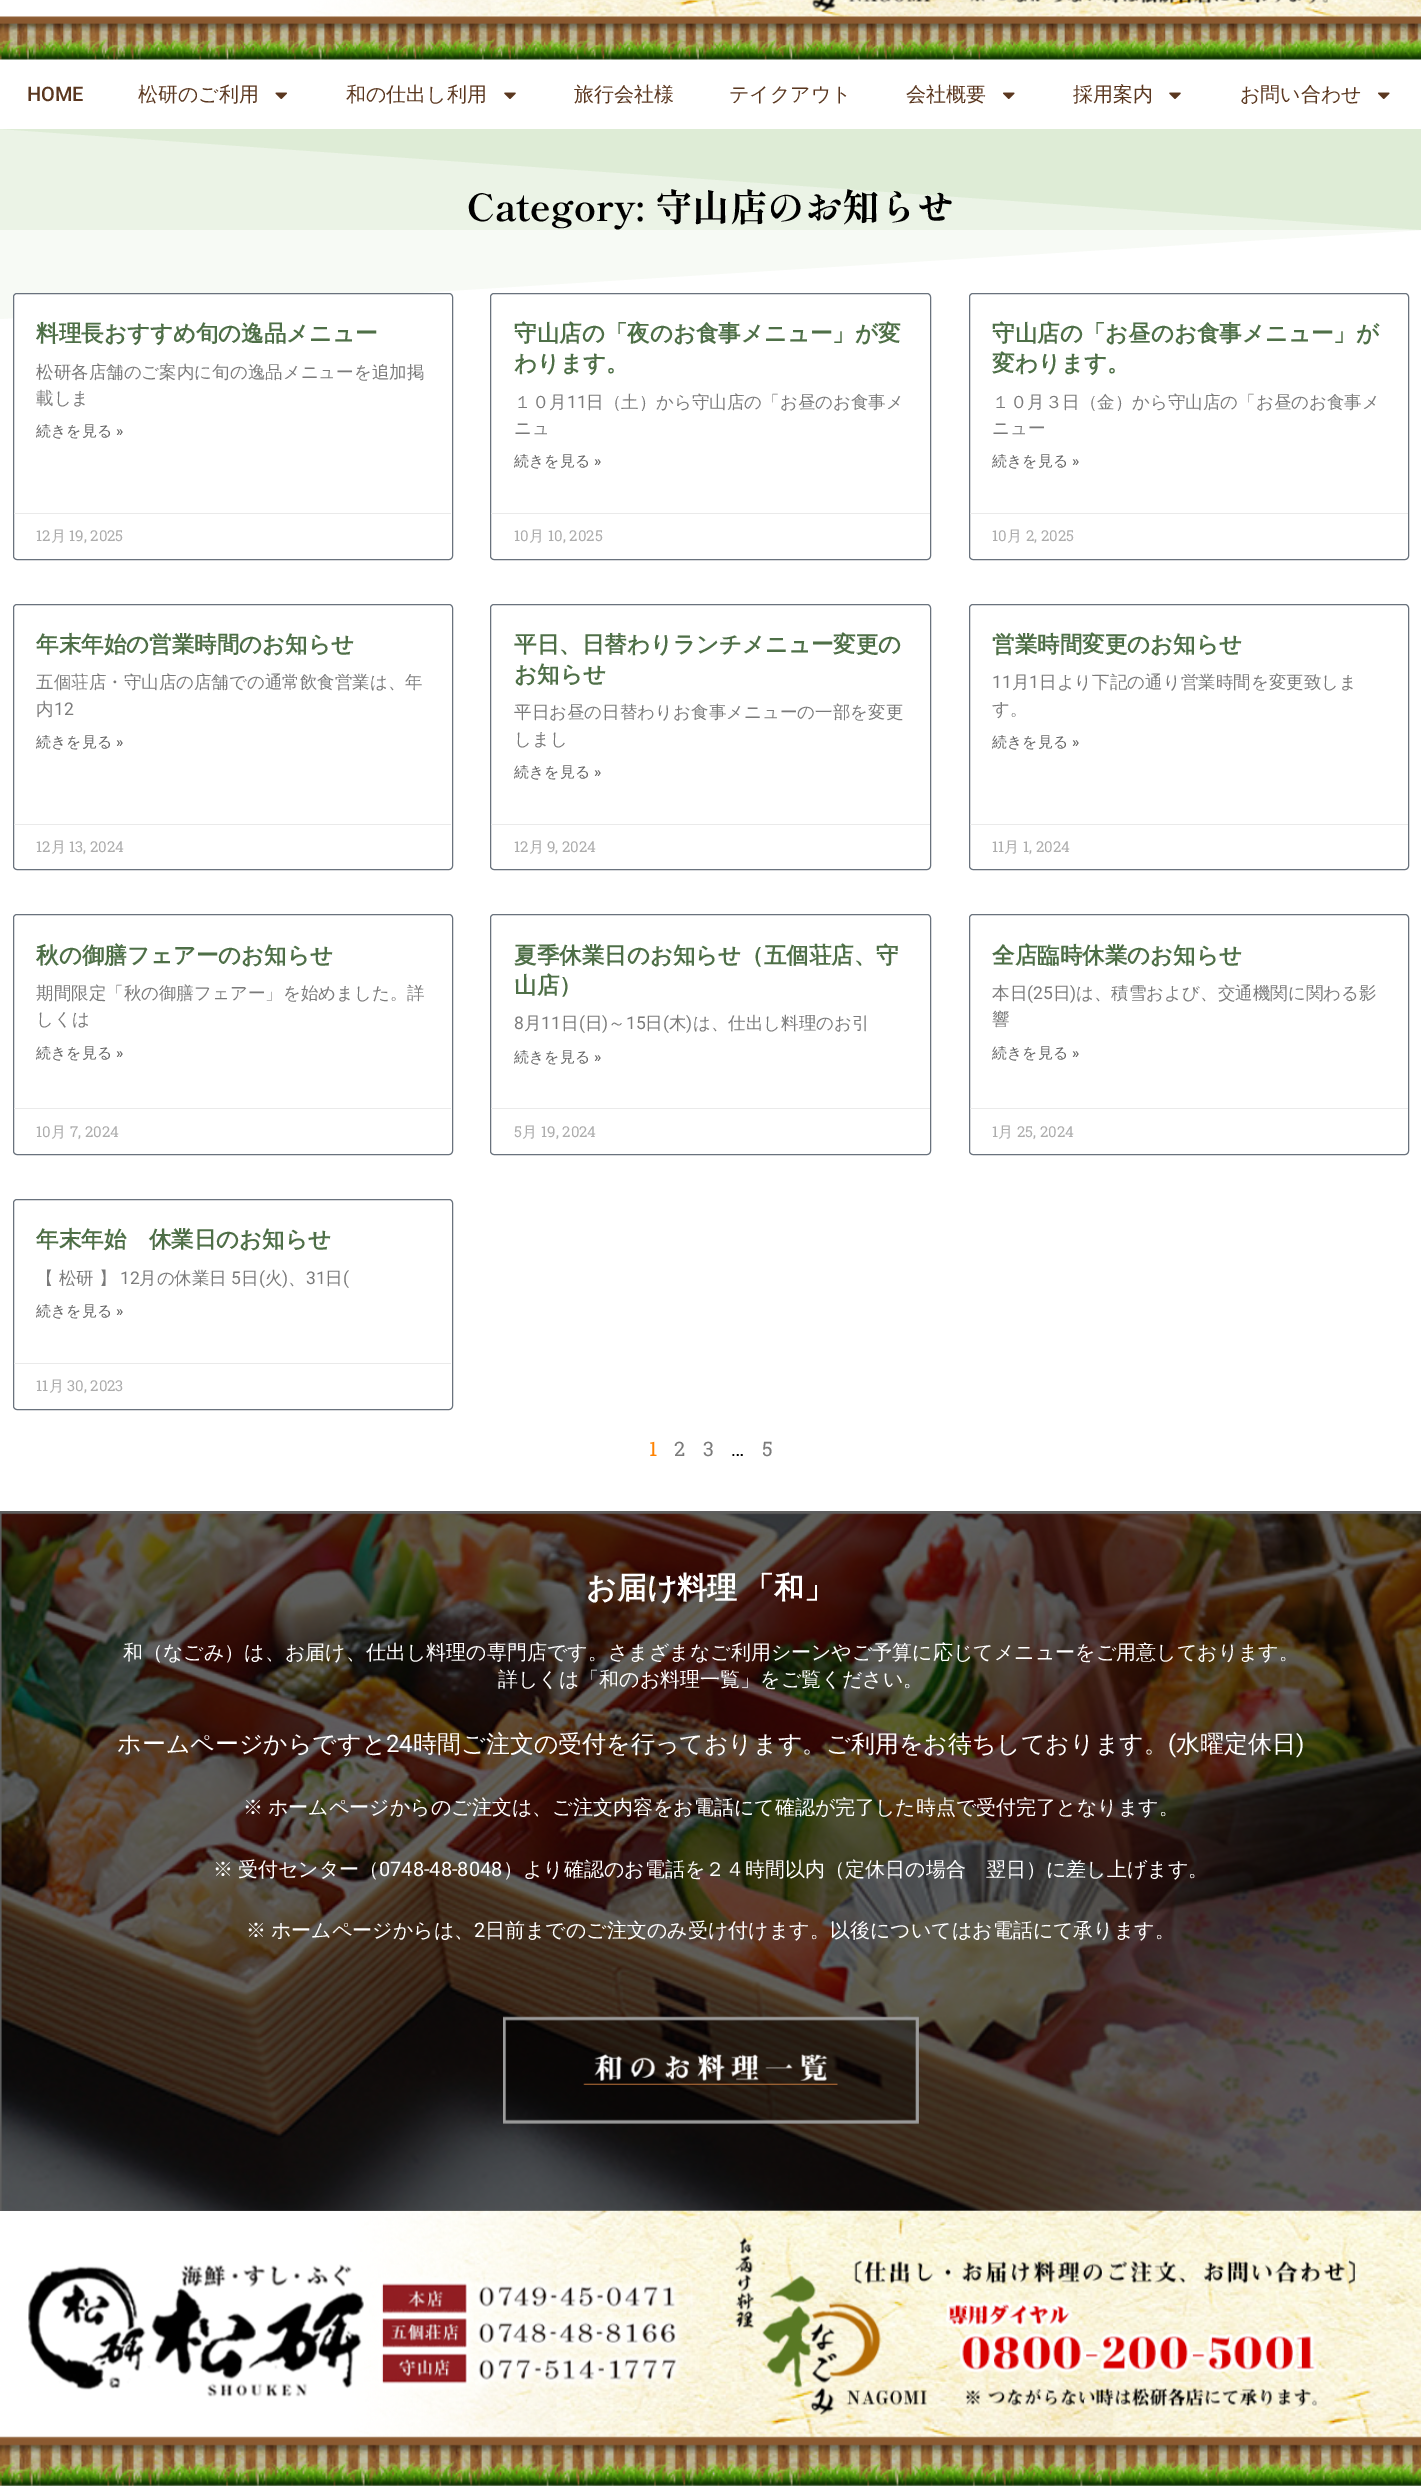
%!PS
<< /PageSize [1421 2486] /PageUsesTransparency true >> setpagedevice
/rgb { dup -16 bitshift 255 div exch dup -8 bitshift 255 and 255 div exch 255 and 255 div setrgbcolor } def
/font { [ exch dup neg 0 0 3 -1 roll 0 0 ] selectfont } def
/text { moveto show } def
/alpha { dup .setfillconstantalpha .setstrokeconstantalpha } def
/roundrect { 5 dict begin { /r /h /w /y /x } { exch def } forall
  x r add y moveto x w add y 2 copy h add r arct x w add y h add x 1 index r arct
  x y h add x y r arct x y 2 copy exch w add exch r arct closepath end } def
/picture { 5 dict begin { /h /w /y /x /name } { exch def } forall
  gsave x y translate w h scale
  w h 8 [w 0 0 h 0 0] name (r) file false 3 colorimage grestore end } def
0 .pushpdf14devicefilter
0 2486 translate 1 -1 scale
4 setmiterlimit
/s1 { /Roboto-Medium 20 font 16#5A371F rgb } def
/s2 { /WenQuanYiZenHei-Medium 20 font 16#5A371F rgb } def
/s3 { /ShipporiMinchoB1-Bold 37.5 font 16#000000 rgb } def
/s4 { /WenQuanYiZenHei-Bold 22.5 font 16#4E6F47 rgb } def
/s5 { /WenQuanYiZenHei-Medium 17.5 font 16#7A7A7A rgb } def
/s6 { /WenQuanYiZenHei-Medium 15 font 16#636363 rgb } def
/s7 { /Roboto-Medium 15 font 16#636363 rgb } def
/s8 { /RobotoSlab-Regular 15 font 16#ADADAD rgb } def
/s9 { /WenQuanYiZenHei-Medium 15 font 16#ADADAD rgb } def
/s10 { /Roboto-Regular 17.5 font 16#7A7A7A rgb } def
/s11 { /RobotoSlab-Regular 20 font 16#FF8200 rgb } def
/s12 { /RobotoSlab-Regular 20 font 16#7A7A7A rgb } def
/s13 { /RobotoSlab-Regular 20 font 16#000000 rgb } def
/s14 { /WenQuanYiZenHei-Medium 20 font 16#FFFFFF rgb } def
/s15 { /WenQuanYiZenHei-Medium 24 font 16#FFFFFF rgb } def
/s16 { /Roboto-Regular 24 font 16#FFFFFF rgb } def
/s17 { /Roboto-Regular 20 font 16#FFFFFF rgb } def
16#FFFFFF rgb
0 0 1421 2486 rectfill
16#EFF6EB rgb
0 129 1421 101 rectfill
(pic1.raw) 0 0 1421 60 picture
(pic2.raw) 812 0 516 12 picture
s1
(HOME) 27 101 text
s2
(松研のご利用) 138 101 text
(pic3.raw) 275 92 12 7 picture
(和の仕出し利用) 346 101 text
(pic4.raw) 504 92 12 7 picture
(旅行会社様) 574 101 text
(テイクアウト) 729 101 text
(会社概要) 906 101 text
(pic5.raw) 1003 92 12 7 picture
(採用案内) 1073 101 text
(pic4.raw) 1169 92 12 7 picture
(お問い合わせ) 1240 101 text
(pic5.raw) 1378 92 12 7 picture
16#DEECD6 rgb
0 129 moveto 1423 129 lineto 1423 230 lineto closepath fill
0.25 alpha
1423 129 moveto 0 129 lineto 0 319 lineto 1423 230 lineto closepath fill
1 alpha
s3
(Category: 守山店のお知らせ) 467 221 text
16#FFFFFF rgb
13.5 293.5 439 266 3.5 roundrect gsave fill grestore
16#69727D rgb
stroke
s4
(料理長おすすめ旬の逸品メニュー) 36 341 text
s5
(松研各店舗のご案内に旬の逸品メニューを追加掲) 36 378 text
(載しま) 36 404 text
s6
(続きを見る) 36 436 text
s7
(») 116 436 text
16#EAEAEA rgb
14 513 437 1 rectfill
s8
(12) 36 541 text
s9
(月) 51 541 text
s8
(19, 2025) 69 541 text
16#69727D rgb
490.5 293.5 440 266 3.5 roundrect stroke
s4
(守山店の「夜のお食事メニュー」が変) 514 341 text
(わります。) 514 371 text
s5
(１０月) 514 408 text
s10
(11) 567 408 text
s5
(日（土）から守山店の「お昼のお食事メ) 586 408 text
(ニュ) 514 434 text
s6
(続きを見る) 514 466 text
s7
(») 594 466 text
16#EAEAEA rgb
491 513 439 1 rectfill
s8
(10) 514 541 text
s9
(月) 529 541 text
s8
(10, 2025) 548 541 text
16#69727D rgb
969.5 293.5 439 266 3.5 roundrect stroke
s4
(守山店の「お昼のお食事メニュー」が) 992 341 text
(変わります。) 992 371 text
s5
(１０月３日（金）から守山店の「お昼のお食事メ) 992 408 text
(ニュー) 992 434 text
s6
(続きを見る) 992 466 text
s7
(») 1072 466 text
16#EAEAEA rgb
970 513 438 1 rectfill
s8
(10) 992 541 text
s9
(月) 1007 541 text
s8
(2, 2025) 1026 541 text
16#69727D rgb
13.5 604.5 439 265 3.5 roundrect stroke
s4
(年末年始の営業時間のお知らせ) 36 652 text
s5
(五個荘店・守山店の店舗での通常飲食営業は、年) 36 688 text
(内) 36 715 text
s10
(12) 54 715 text
s6
(続きを見る) 36 747 text
s7
(») 116 747 text
16#EAEAEA rgb
14 824 437 1 rectfill
s8
(12) 36 852 text
s9
(月) 51 852 text
s8
(13, 2024) 69 852 text
16#69727D rgb
490.5 604.5 440 265 3.5 roundrect stroke
s4
(平日、日替わりランチメニュー変更の) 514 652 text
(お知らせ) 514 682 text
s5
(平日お昼の日替わりお食事メニューの一部を変更) 514 718 text
(しまし) 514 745 text
s6
(続きを見る) 514 777 text
s7
(») 594 777 text
16#EAEAEA rgb
491 824 439 1 rectfill
s8
(12) 514 852 text
s9
(月) 529 852 text
s8
(9, 2024) 547 852 text
16#69727D rgb
969.5 604.5 439 265 3.5 roundrect stroke
s4
(営業時間変更のお知らせ) 992 652 text
s10
(11) 992 688 text
s5
(月) 1012 688 text
s10
(1) 1029 688 text
s5
(日より下記の通り営業時間を変更致しま) 1039 688 text
(す。) 992 715 text
s6
(続きを見る) 992 747 text
s7
(») 1072 747 text
16#EAEAEA rgb
970 824 438 1 rectfill
s8
(11) 992 852 text
s9
(月) 1004 852 text
s8
(1, 2024) 1023 852 text
16#69727D rgb
13.5 914.5 439 240 3.5 roundrect stroke
s4
(秋の御膳フェアーのお知らせ) 36 963 text
s5
(期間限定「秋の御膳フェアー」を始めました。詳) 36 999 text
(しくは) 36 1025 text
s6
(続きを見る) 36 1058 text
s7
(») 116 1058 text
16#EAEAEA rgb
14 1108 437 1 rectfill
s8
(10) 36 1137 text
s9
(月) 51 1137 text
s8
(7, 2024) 70 1137 text
16#69727D rgb
490.5 914.5 440 240 3.5 roundrect stroke
s4
(夏季休業日のお知らせ（五個荘店、守) 514 963 text
(山店）) 514 993 text
s10
(8) 514 1029 text
s5
(月) 524 1029 text
s10
(11) 541 1029 text
s5
(日) 561 1029 text
s10
(\() 579 1029 text
s5
(日) 585 1029 text
s10
(\)) 602 1029 text
s5
(～) 608 1029 text
s10
(15) 626 1029 text
s5
(日) 645 1029 text
s10
(\() 663 1029 text
s5
(木) 669 1029 text
s10
(\)) 686 1029 text
s5
(は、仕出し料理のお引) 693 1029 text
s6
(続きを見る) 514 1062 text
s7
(») 594 1062 text
16#EAEAEA rgb
491 1108 439 1 rectfill
s8
(5) 514 1137 text
s9
(月) 522 1137 text
s8
(19, 2024) 541 1137 text
16#69727D rgb
969.5 914.5 439 240 3.5 roundrect stroke
s4
(全店臨時休業のお知らせ) 992 963 text
s5
(本日) 992 999 text
s10
(\(25) 1027 999 text
s5
(日) 1053 999 text
s10
(\)) 1070 999 text
s5
(は、積雪および、交通機関に関わる影) 1076 999 text
(響) 992 1025 text
s6
(続きを見る) 992 1058 text
s7
(») 1072 1058 text
16#EAEAEA rgb
970 1108 438 1 rectfill
s8
(1) 992 1137 text
s9
(月) 998 1137 text
s8
(25, 2024) 1017 1137 text
16#69727D rgb
13.5 1199.5 439 210 3.5 roundrect stroke
s4
(年末年始　休業日のお知らせ) 36 1247 text
s5
(【 松研 】) 36 1284 text
s10
(12) 120 1284 text
s5
(月の休業日) 139 1284 text
s10
(5) 231 1284 text
s5
(日) 241 1284 text
s10
(\() 259 1284 text
s5
(火) 265 1284 text
s10
(\)) 282 1284 text
s5
(、) 288 1284 text
s10
(31) 306 1284 text
s5
(日) 325 1284 text
s10
(\() 343 1284 text
s6
(続きを見る) 36 1316 text
s7
(») 116 1316 text
16#EAEAEA rgb
14 1363 437 1 rectfill
s8
(11) 36 1391 text
s9
(月) 49 1391 text
s8
(30, 2023) 67 1391 text
s11
(1) 649 1456 text
s12
(2) 674 1456 text
(3) 703 1456 text
s13
(…) 731 1456 text
s12
(5) 762 1456 text
(pic6.raw) 0 1511 1421 700 picture
/WenQuanYiZenHei-Bold 30 font
16#FFFFFF rgb
586 1598 moveto -2 0 32 (お届け料理 「和」) widthshow
s14
(和（なごみ）は、お届け、仕出し料理の専門店です。さまざまなご利用シーンやご予算に応じてメニューをご用意しております。) 123 1659 text
(詳しくは「和のお料理一覧」をご覧ください。) 498 1686 text
s15
(ホームページからですと) 117 1752 text
s16
(24) 386 1752 text
s15
(時間ご注文の受付を行っております。ご利用をお待ちしております。) 413 1752 text
s16
(\() 1168 1752 text
s15
(水曜定休日) 1176 1752 text
s16
(\)) 1296 1752 text
/WenQuanYiZenHei-Medium 20 font
243 1814 moveto -1 0 32 (※ ホームページからのご注文は、ご注文内容をお電話にて確認が完了した時点で受付完了となります。) widthshow
(※) 213 1876 text
(受付センター（) 238 1876 text
s17
(0748-48-8048) 379 1876 text
s14
(）より確認のお電話を２４時間以内（定休日の場合　翌日）に差し上げます。) 503 1876 text
(※) 246 1937 text
(ホームページからは、) 271 1937 text
s17
(2) 474 1937 text
s14
(日前までのご注文のみ受け付けます。以後についてはお電話にて承ります。) 485 1937 text
(pic7.raw) 503 2016 416 108 picture
(pic8.raw) 0 2210 1421 276 picture
(pic9.raw) 28 2264 665 133 picture
(pic10.raw) 735 2237 620 178 picture
.poppdf14devicefilter showpage
